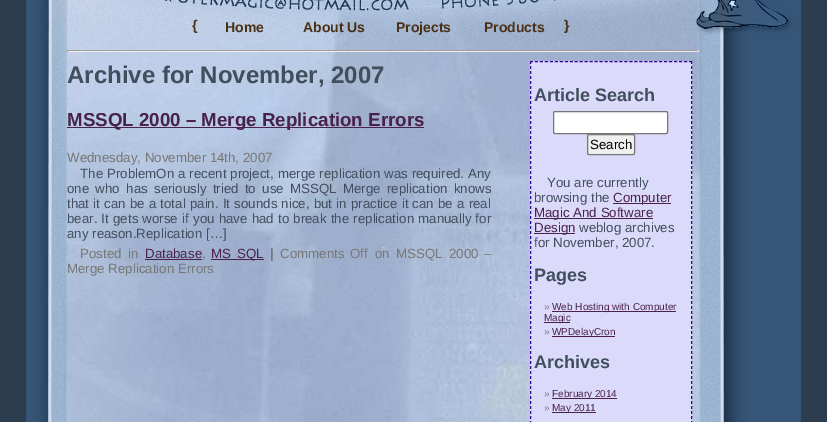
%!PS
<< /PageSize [827 422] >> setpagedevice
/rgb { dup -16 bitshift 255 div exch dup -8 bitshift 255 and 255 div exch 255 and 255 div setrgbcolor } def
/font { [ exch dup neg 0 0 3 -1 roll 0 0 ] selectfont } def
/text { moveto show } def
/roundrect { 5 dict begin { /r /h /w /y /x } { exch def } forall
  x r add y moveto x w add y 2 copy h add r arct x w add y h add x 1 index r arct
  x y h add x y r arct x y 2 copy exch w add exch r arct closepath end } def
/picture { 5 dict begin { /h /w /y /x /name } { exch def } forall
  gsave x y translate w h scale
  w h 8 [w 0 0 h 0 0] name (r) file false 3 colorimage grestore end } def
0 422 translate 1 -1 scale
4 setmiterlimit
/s1 { /LiberationSans-Bold 14 font 16#4A3014 rgb } def
/s2 { /LiberationSans-Bold 24 font 16#404E5D rgb } def
/s3 { /LiberationSans-Bold 18.75 font 16#49224C rgb } def
/s4 { /LiberationSans-Regular 13.3 font 16#777777 rgb } def
/s5 { /LiberationSans-Regular 13.3 font 16#404E5D rgb } def
/s6 { /LiberationSans-Regular 13.3 font 16#49224C rgb } def
/s7 { /LiberationSans-Bold 13.3 font 16#777777 rgb } def
/s8 { /LiberationSans-Bold 18 font 16#404E5D rgb } def
/s9 { /LiberationSans-Regular 13.3 font 16#000000 rgb } def
/s10 { /LiberationSans-Regular 10 font 16#777777 rgb } def
/s11 { /LiberationSans-Regular 10 font 16#49224C rgb } def
16#2C3D50 rgb
0 0 827 422 rectfill
(pic1.raw) 26 0 775 11 picture
(pic2.raw) 26 11 775 31 picture
s1
({) 192 30 text
(}) 564 30 text
(pic3.raw) 26 42 41 380 picture
(pic4.raw) 67 42 632 380 picture
16#9F9F9F rgb
67 50 632 1 rectfill
16#EEEEEE rgb
698 50 1 2 rectfill
67 51 632 1 rectfill
16#9F9F9F rgb
67 50 1 2 rectfill
s2
(Archive for November, 2007) 67 83 text
16#49224C rgb
67 127 357 1 rectfill
s3
(MSSQL 2000 – Merge Replication Errors) 67 126 text
s4
(Wednesday, November 14th, 2007) 67 162 text
16#404E5D rgb
80 178 moveto 0.25 0 32 (The ProblemOn a recent project, merge replication was required. Any) widthshow
67 193 moveto 2.6 0 32 (one who has seriously tried to use MSSQL Merge replication knows) widthshow
67 208 moveto 0.5 0 32 (that it can be a total pain. It sounds nice, but in practice it can be a real) widthshow
67 223 moveto 0.5 0 32 (bear. It gets worse if you have had to break the replication manually for) widthshow
(any reason.Replication […]) 67 238 text
16#777777 rgb
80 258 moveto 2.5 0 32 (Posted in) widthshow
s6
(Database) 145 258 text
145 259 57 1 rectfill
s4
(,) 202 258 text
16#49224C rgb
211 259 53 1 rectfill
211 258 moveto 2.5 0 32 (MS SQL) widthshow
s7
(|) 270 258 text
/LiberationSans-Regular 13.3 font
280 258 moveto 2 0 32 (Comments Off) widthshow
375 258 moveto 2.5 0 32 (on MSSQL 2000 –) widthshow
(Merge Replication Errors) 67 273 text
16#DCDAFA rgb
530 61 162 361 rectfill
16#330099 rgb
[3 1.97] 0 setdash
530 61.5 moveto 692 61.5 lineto stroke
[3 2] 0 setdash
691.5 61 moveto 691.5 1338 lineto stroke
530.5 61 moveto 530.5 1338 lineto stroke
s8
(Article Search) 534 101 text
16#FFFFFF rgb
553.5 111.5 114 22 1.5 roundrect gsave fill grestore
16#767676 rgb
[] 0 setdash
stroke
16#EFEFEF rgb
587.5 134.5 47 20 1.5 roundrect gsave fill grestore
16#767676 rgb
stroke
s9
(Search) 590 149 text
s5
(You are currently) 547 187 text
(browsing the) 534 202 text
16#49224C rgb
613 203 58 1 rectfill
(Computer) 613 202 text
534 218 119 1 rectfill
(Magic And Software) 534 217 text
534 233 41 1 rectfill
(Design) 534 232 text
s5
(weblog archives) 579 232 text
(for November, 2007.) 534 247 text
s8
(Pages) 534 281 text
s10
(») 544 310 text
16#49224C rgb
552 311 124 1 rectfill
(Web Hosting with Computer) 552 310 text
544 322 26 1 rectfill
(Magic) 544 321 text
s10
(») 544 335 text
16#49224C rgb
552 336 63 1 rectfill
(WPDelayCron) 552 335 text
s8
(Archives) 534 368 text
s10
(») 544 397 text
16#49224C rgb
552 398 65 1 rectfill
(February 2014) 552 397 text
s10
(») 544 411 text
16#49224C rgb
552 412 44 1 rectfill
(May 2011) 552 411 text
(pic5.raw) 699 42 102 380 picture
s1
(Home) 225 32 text
(About Us) 303 32 text
(Projects) 396 32 text
(Products) 484 32 text
showpage
